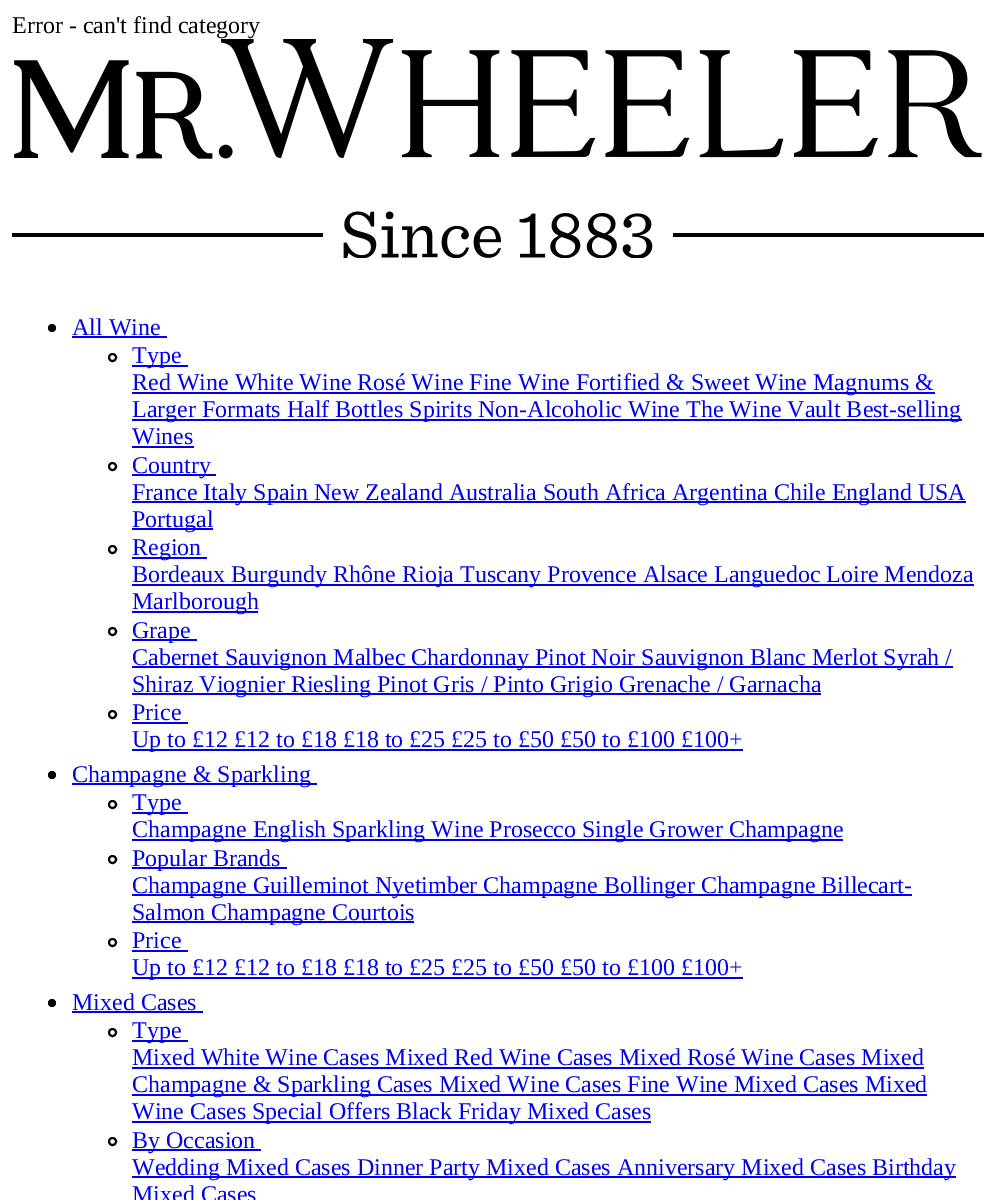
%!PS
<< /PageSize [996 1200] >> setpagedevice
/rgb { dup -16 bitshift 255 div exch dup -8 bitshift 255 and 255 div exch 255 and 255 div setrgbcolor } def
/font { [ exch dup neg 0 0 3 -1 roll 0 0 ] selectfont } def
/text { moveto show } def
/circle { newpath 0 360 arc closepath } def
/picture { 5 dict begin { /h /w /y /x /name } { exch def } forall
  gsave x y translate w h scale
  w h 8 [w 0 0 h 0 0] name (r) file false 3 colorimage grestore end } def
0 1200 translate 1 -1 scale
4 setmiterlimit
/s1 { /LiberationSerif-Regular 24 font 16#000000 rgb } def
/s2 { /LiberationSerif-Regular 24 font 16#0000EE rgb } def
16#FFFFFF rgb
0 0 996 1200 rectfill
s1
(Error - can't find category) 12 33 text
(pic1.raw) 12 39 972 219 picture
52 328 4 circle fill
s2
(All Wine) 72 335 text
72 336 95 2 rectfill
16#000000 rgb
2 setlinewidth
112.5 357.5 3.5 circle stroke
16#0000EE rgb
132 365 56 2 rectfill
(Type) 132 363 text
132 392 803 2 rectfill
(Red Wine White Wine Rosé Wine Fine Wine Fortified & Sweet Wine Magnums &) 132 390 text
132 419 830 2 rectfill
(Larger Formats Half Bottles Spirits Non-Alcoholic Wine The Wine Vault Best-selling) 132 417 text
(Wines) 132 444 text
132 446 62 2 rectfill
16#000000 rgb
112.5 466.5 3.5 circle stroke
16#0000EE rgb
132 474 84 2 rectfill
(Country) 132 473 text
132 501 834 2 rectfill
(France Italy Spain New Zealand Australia South Africa Argentina Chile England USA) 132 500 text
132 528 81 2 rectfill
(Portugal) 132 527 text
16#000000 rgb
112.5 549.5 3.5 circle stroke
16#0000EE rgb
132 557 75 2 rectfill
(Region) 132 555 text
132 584 842 2 rectfill
(Bordeaux Burgundy Rhône Rioja Tuscany Provence Alsace Languedoc Loire Mendoza) 132 582 text
132 611 126 2 rectfill
(Marlborough) 132 609 text
16#000000 rgb
112.5 631.5 3.5 circle stroke
16#0000EE rgb
132 639 65 2 rectfill
(Grape) 132 638 text
132 666 821 2 rectfill
(Cabernet Sauvignon Malbec Chardonnay Pinot Noir Sauvignon Blanc Merlot Syrah /) 132 665 text
132 693 689 2 rectfill
(Shiraz Viognier Riesling Pinot Gris / Pinto Grigio Grenache / Garnacha) 132 692 text
16#000000 rgb
112.5 714.5 3.5 circle stroke
s2
(Price) 132 720 text
132 722 56 2 rectfill
132 749 611 2 rectfill
(Up to £12 £12 to £18 £18 to £25 £25 to £50 £50 to £100 £100+) 132 747 text
16#000000 rgb
52 775 4 circle fill
16#0000EE rgb
72 783 245 2 rectfill
(Champagne & Sparkling) 72 782 text
16#000000 rgb
112.5 804.5 3.5 circle stroke
16#0000EE rgb
132 812 56 2 rectfill
(Type) 132 810 text
132 839 711 2 rectfill
(Champagne English Sparkling Wine Prosecco Single Grower Champagne) 132 837 text
16#000000 rgb
112.5 859.5 3.5 circle stroke
16#0000EE rgb
132 867 155 2 rectfill
(Popular Brands) 132 866 text
132 894 780 2 rectfill
(Champagne Guilleminot Nyetimber Champagne Bollinger Champagne Billecart-) 132 893 text
132 921 282 2 rectfill
(Salmon Champagne Courtois) 132 920 text
16#000000 rgb
112.5 942.5 3.5 circle stroke
s2
(Price) 132 948 text
132 950 56 2 rectfill
132 977 611 2 rectfill
(Up to £12 £12 to £18 £18 to £25 £25 to £50 £50 to £100 £100+) 132 975 text
16#000000 rgb
52 1003 4 circle fill
s2
(Mixed Cases) 72 1010 text
72 1011 131 2 rectfill
16#000000 rgb
112.5 1032.5 3.5 circle stroke
16#0000EE rgb
132 1040 56 2 rectfill
(Type) 132 1038 text
(Mixed White Wine Cases Mixed Red Wine Cases Mixed Rosé Wine Cases Mixed) 132 1065 text
132 1067 792 2 rectfill
132 1094 795 2 rectfill
(Champagne & Sparkling Cases Mixed Wine Cases Fine Wine Mixed Cases Mixed) 132 1092 text
132 1121 519 2 rectfill
(Wine Cases Special Offers Black Friday Mixed Cases) 132 1119 text
16#000000 rgb
112.5 1141.5 3.5 circle stroke
16#0000EE rgb
132 1149 129 2 rectfill
(By Occasion) 132 1148 text
132 1176 824 2 rectfill
(Wedding Mixed Cases Dinner Party Mixed Cases Anniversary Mixed Cases Birthday) 132 1175 text
(Mixed Cases) 132 1202 text
showpage
